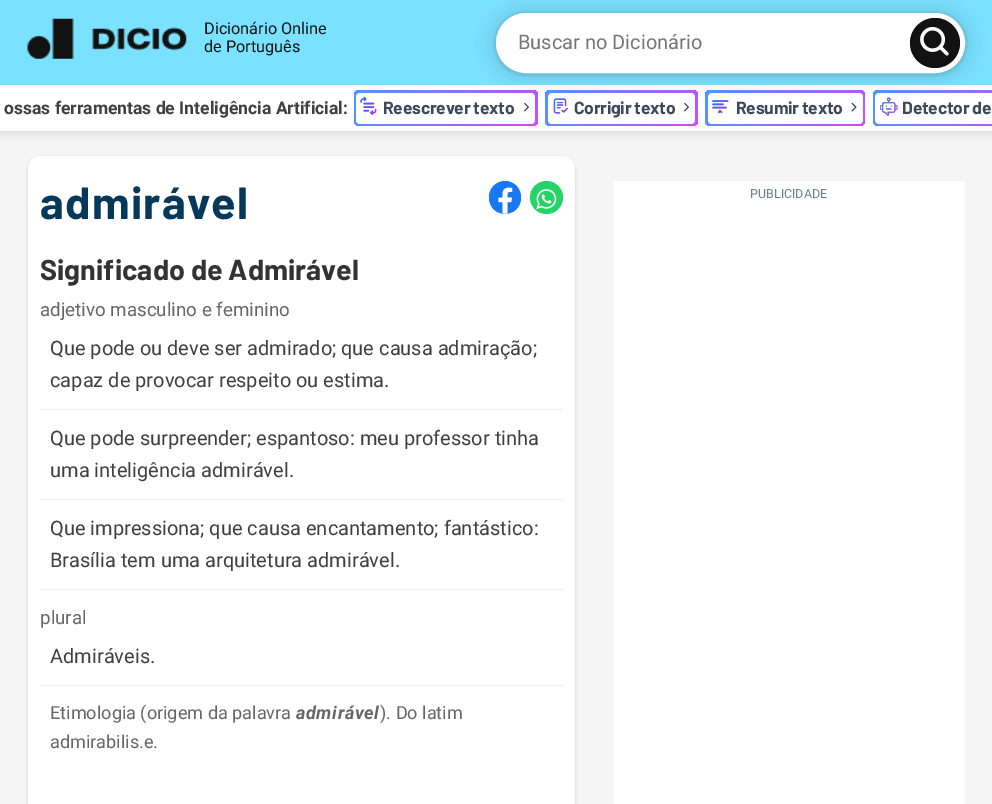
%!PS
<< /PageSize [992 804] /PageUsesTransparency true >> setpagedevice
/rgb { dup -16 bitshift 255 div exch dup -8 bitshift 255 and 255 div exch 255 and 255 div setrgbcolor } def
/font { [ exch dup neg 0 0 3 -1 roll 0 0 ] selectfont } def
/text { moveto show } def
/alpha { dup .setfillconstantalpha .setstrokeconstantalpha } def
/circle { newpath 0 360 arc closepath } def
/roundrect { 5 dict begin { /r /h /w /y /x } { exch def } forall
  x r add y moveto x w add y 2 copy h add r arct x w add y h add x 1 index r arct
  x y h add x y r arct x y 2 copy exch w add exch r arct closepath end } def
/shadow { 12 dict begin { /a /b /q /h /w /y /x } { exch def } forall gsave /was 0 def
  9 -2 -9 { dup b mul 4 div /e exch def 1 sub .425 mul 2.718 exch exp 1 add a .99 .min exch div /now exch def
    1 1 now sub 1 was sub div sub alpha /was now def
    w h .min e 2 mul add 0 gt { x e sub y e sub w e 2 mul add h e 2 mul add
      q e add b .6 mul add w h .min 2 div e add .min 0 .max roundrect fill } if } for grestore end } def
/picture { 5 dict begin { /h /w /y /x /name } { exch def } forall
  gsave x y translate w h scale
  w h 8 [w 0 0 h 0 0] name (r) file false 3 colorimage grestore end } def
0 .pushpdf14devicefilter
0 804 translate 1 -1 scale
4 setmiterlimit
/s1 { /Roboto-Regular 16.25 font 16#121212 rgb } def
/s2 { /Roboto-Regular 20 font 16#757575 rgb } def
/s3 { /Roboto-Bold 17.5 font 16#404040 rgb } def
/s4 { /Barlow-Bold 28.75 font 16#333333 rgb } def
/s5 { /Roboto-Regular 18.75 font 16#666666 rgb } def
/s6 { /Roboto-Regular 20 font 16#404040 rgb } def
/s7 { /Roboto-Regular 18.1 font 16#666666 rgb } def
/s8 { /Roboto-Regular 12.5 font 16#6F7E8A rgb } def
16#F5F5F5 rgb
0 0 992 804 rectfill
16#000000 rgb
0 85 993 46 0 6 0.15 shadow
16#7AE2FF rgb
0 0 992 85 rectfill
(pic1.raw) 27 18 160 41 picture
s1
(Dicionário Online) 204 34 text
(de Português) 204 52 text
16#FFFFFF rgb
0 85 992 46 rectfill
gsave 354 90 184 36 6 roundrect clip newpath
<< /ShadingType 2 /ColorSpace /DeviceRGB /Coords [390 53 501 163] /Extend [true true] /Function << /FunctionType 3 /Domain [0 1] /Functions [<< /FunctionType 2 /Domain [0 1] /C0 [0.294 0.6 1] /C1 [0.294 0.6 1] /N 1 >> << /FunctionType 2 /Domain [0 1] /C0 [0.294 0.6 1] /C1 [0.792 0.306 1] /N 1 >> << /FunctionType 2 /Domain [0 1] /C0 [0.792 0.306 1] /C1 [0.792 0.306 1] /N 1 >>] /Bounds [0.05 0.94] /Encode [0 1 0 1 0 1] >> >> shfill grestore
356 93 179 31 4 roundrect fill
(pic4.raw) 524 102 5 10 picture
gsave 545 90 153 36 6 roundrect clip newpath
<< /ShadingType 2 /ColorSpace /DeviceRGB /Coords [573 61 669 155] /Extend [true true] /Function << /FunctionType 3 /Domain [0 1] /Functions [<< /FunctionType 2 /Domain [0 1] /C0 [0.294 0.6 1] /C1 [0.294 0.6 1] /N 1 >> << /FunctionType 2 /Domain [0 1] /C0 [0.294 0.6 1] /C1 [0.792 0.306 1] /N 1 >> << /FunctionType 2 /Domain [0 1] /C0 [0.792 0.306 1] /C1 [0.792 0.306 1] /N 1 >>] /Bounds [0.05 0.94] /Encode [0 1 0 1 0 1] >> >> shfill grestore
548 93 147 31 4 roundrect fill
(pic5.raw) 553 98 15 16 picture
(pic4.raw) 684 102 5 10 picture
gsave 705 90 160 36 6 roundrect clip newpath
<< /ShadingType 2 /ColorSpace /DeviceRGB /Coords [735 59 835 157] /Extend [true true] /Function << /FunctionType 3 /Domain [0 1] /Functions [<< /FunctionType 2 /Domain [0 1] /C0 [0.294 0.6 1] /C1 [0.294 0.6 1] /N 1 >> << /FunctionType 2 /Domain [0 1] /C0 [0.294 0.6 1] /C1 [0.792 0.306 1] /N 1 >> << /FunctionType 2 /Domain [0 1] /C0 [0.792 0.306 1] /C1 [0.792 0.306 1] /N 1 >>] /Bounds [0.05 0.94] /Encode [0 1 0 1 0 1] >> >> shfill grestore
708 93 155 31 4 roundrect fill
(pic6.raw) 712 100 17 14 picture
(pic7.raw) 851 102 6 10 picture
gsave 879 90 moveto 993 90 lineto 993 126 lineto 879 126 lineto 875.5 126 873 123.5 873 120 curveto 873 96 lineto 873 92.5 875.5 90 879 90 curveto closepath clip newpath
<< /ShadingType 2 /ColorSpace /DeviceRGB /Coords [903 59 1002 157] /Extend [true true] /Function << /FunctionType 3 /Domain [0 1] /Functions [<< /FunctionType 2 /Domain [0 1] /C0 [0.294 0.6 1] /C1 [0.294 0.6 1] /N 1 >> << /FunctionType 2 /Domain [0 1] /C0 [0.294 0.6 1] /C1 [0.792 0.306 1] /N 1 >> << /FunctionType 2 /Domain [0 1] /C0 [0.792 0.306 1] /C1 [0.792 0.306 1] /N 1 >>] /Bounds [0.05 0.94] /Encode [0 1 0 1 0 1] >> >> shfill grestore
879 93 moveto 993 93 lineto 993 124 lineto 879 124 lineto 877 124 875 122 875 120 curveto 875 97 lineto 875 95 877 93 879 93 curveto closepath fill
(pic8.raw) 880 97 18 19 picture
16#000000 rgb
496 14 469 60 30 12.5 0.15 shadow
496 14 469 60 30 3 0.15 shadow
16#FFFFFF rgb
497.5 14.5 466 57 28.5 roundrect gsave fill grestore
3 setlinewidth
stroke
s2
(Buscar no Dicionário) 518 49 text
16#121212 rgb
935 43 25 circle fill
0.1 alpha
16#000000 rgb
1 setlinewidth
935 43 24.5 circle stroke
1 alpha
(pic2.raw) 920 27 29 29 picture
s3
(ossas ferramentas de Inteligência Artificial) 4 114 text
(:) 343 114 text
(pic3.raw) 360 96 17 19 picture
/Barlow-Bold 17.5 font
16#3D495C rgb
383 114 moveto -0.25 0 (Reescrever texto) ashow
574 114 moveto -0.25 0 (Corrigir texto) ashow
736 114 moveto -0.25 0 (Resumir texto) ashow
902 114 moveto -0.25 0 (Detector de) ashow
16#000000 rgb
28 158 547 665 13 2 0.15 shadow
16#FFFFFF rgb
28 156 547 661 13 roundrect fill
/Barlow-Bold 45 font
16#063859 rgb
40 219 moveto 1.25 0 (admirável) ashow
16#1877F2 rgb
489 181 32 33 16 roundrect fill
(pic9.raw) 498 187 15 27 picture
16#25D366 rgb
546.5 197.5 16.5 circle fill
(pic10.raw) 536 189 21 21 picture
s4
(Significado de Admirável) 40 280 text
s5
(adjetivo masculino e feminino) 40 316 text
16#EEEEEE rgb
40 409 523 1 rectfill
s6
(Que pode ou deve ser admirado; que causa admiração;) 50 355 text
(capaz de provocar respeito ou estima.) 50 387 text
16#EEEEEE rgb
40 499 523 1 rectfill
s6
(Que pode surpreender; espantoso: meu professor tinha) 50 445 text
(uma inteligência admirável.) 50 477 text
16#EEEEEE rgb
40 589 523 1 rectfill
s6
(Que impressiona; que causa encantamento; fantástico:) 50 535 text
(Brasília tem uma arquitetura admirável.) 50 567 text
s5
(plural) 40 624 text
16#EEEEEE rgb
40 685 523 1 rectfill
s6
(Admiráveis.) 50 663 text
s7
(Etimologia \(origem da palavra) 50 719 text
/Roboto-BoldItalic 18.1 font
296 719 moveto 0.6 0 (admirável) ashow
s7
(\). Do latim) 380 719 text
(admirabilis.e.) 50 748 text
16#FFFFFF rgb
613 181 352 623 rectfill
s8
(PUBLICIDADE) 750 198 text
.poppdf14devicefilter showpage
